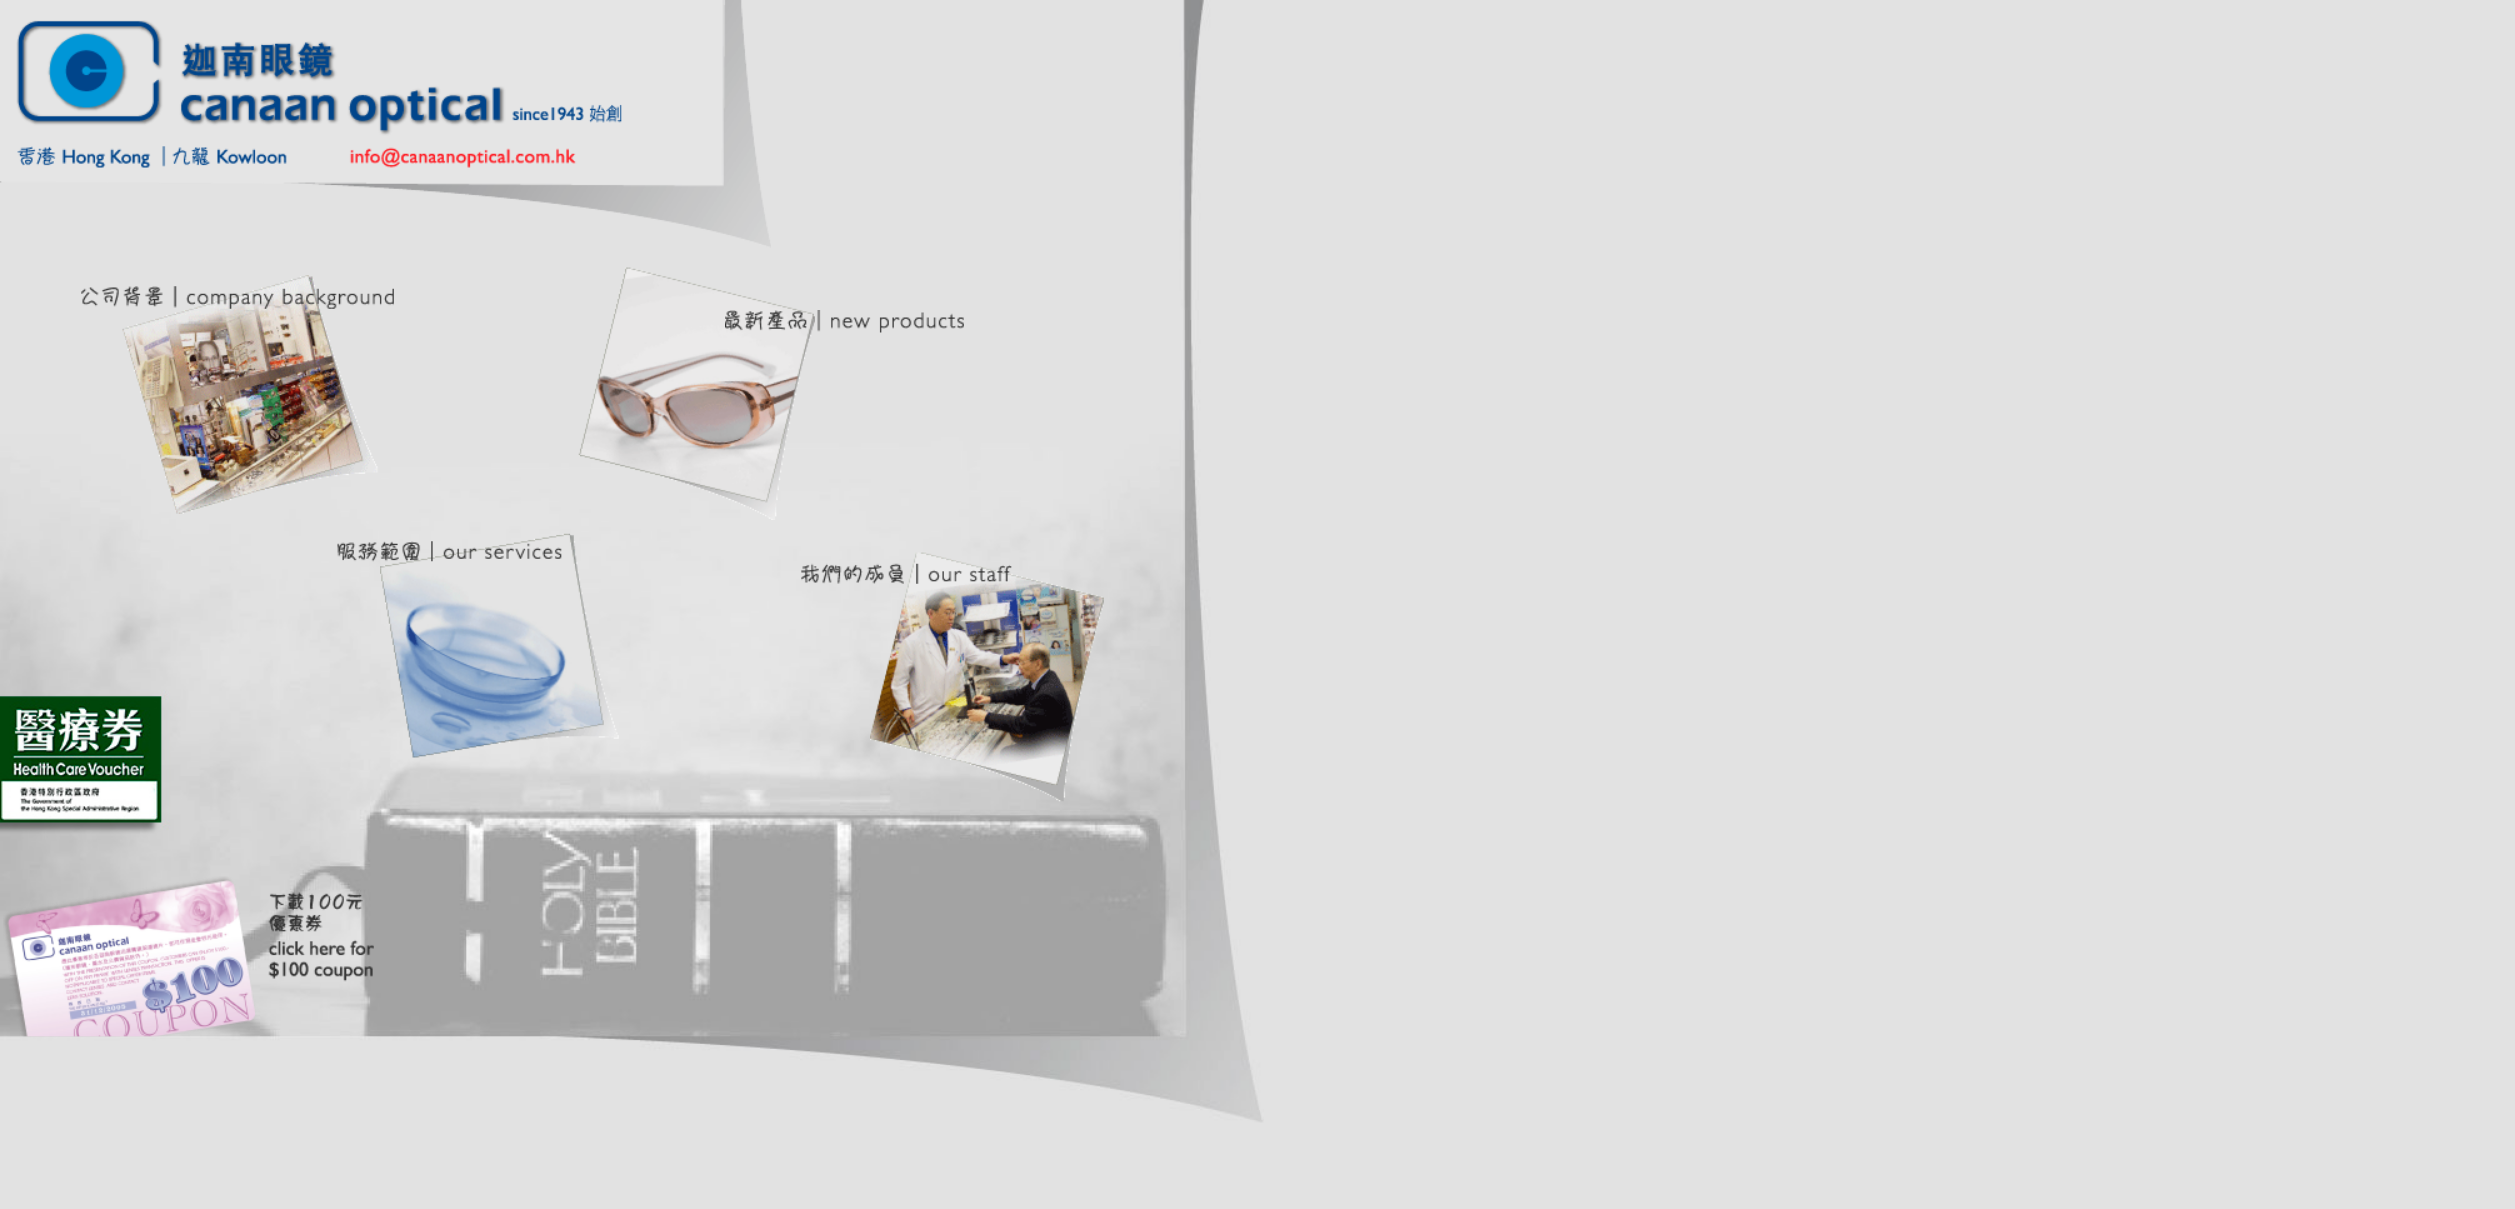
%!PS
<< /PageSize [2515 1209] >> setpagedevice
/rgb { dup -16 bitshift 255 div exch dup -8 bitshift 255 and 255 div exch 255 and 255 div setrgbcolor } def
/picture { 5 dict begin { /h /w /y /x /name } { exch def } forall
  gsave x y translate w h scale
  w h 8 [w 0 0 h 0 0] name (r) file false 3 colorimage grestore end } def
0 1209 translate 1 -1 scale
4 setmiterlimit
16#E2E2E2 rgb
0 0 2515 1209 rectfill
(pic1.raw) 0 0 1264 1123 picture
(pic2.raw) 122 275 256 239 picture
(pic3.raw) 81 286 313 23 picture
(pic4.raw) 578 267 237 253 picture
(pic5.raw) 725 310 239 23 picture
(pic6.raw) 380 533 239 225 picture
(pic7.raw) 337 541 225 21 picture
(pic8.raw) 870 552 234 250 picture
(pic9.raw) 801 563 211 21 picture
(pic10.raw) 3 876 371 161 picture
(pic11.raw) 0 0 771 248 picture
(pic12.raw) 16 20 606 148 picture
showpage
